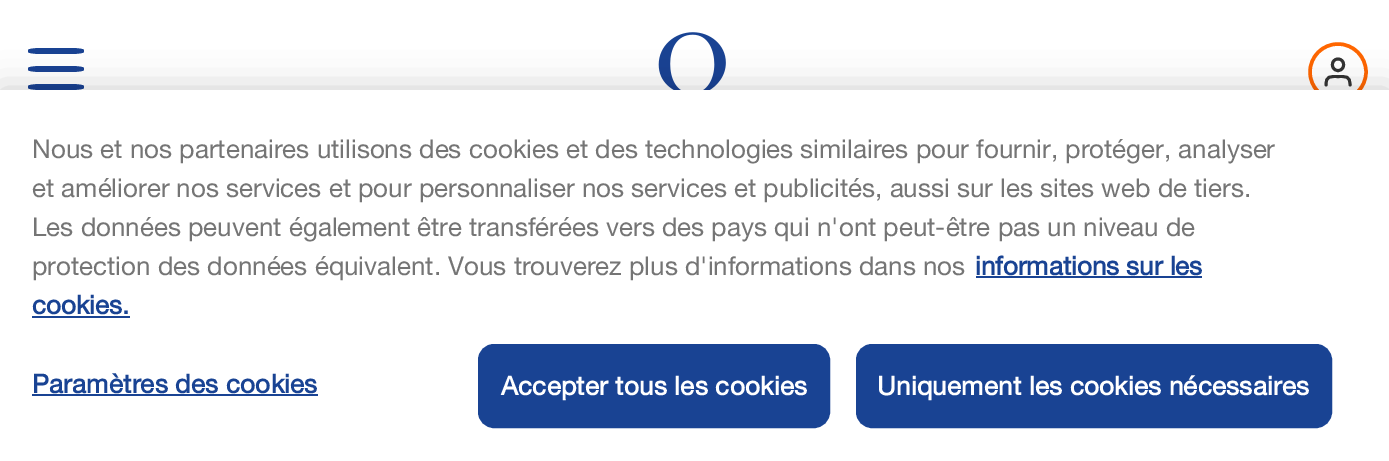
%!PS
<< /PageSize [1389 461] /PageUsesTransparency true >> setpagedevice
/rgb { dup -16 bitshift 255 div exch dup -8 bitshift 255 and 255 div exch 255 and 255 div setrgbcolor } def
/font { [ exch dup neg 0 0 3 -1 roll 0 0 ] selectfont } def
/text { moveto show } def
/alpha { dup .setfillconstantalpha .setstrokeconstantalpha } def
/circle { newpath 0 360 arc closepath } def
/roundrect { 5 dict begin { /r /h /w /y /x } { exch def } forall
  x r add y moveto x w add y 2 copy h add r arct x w add y h add x 1 index r arct
  x y h add x y r arct x y 2 copy exch w add exch r arct closepath end } def
/shadow { 12 dict begin { /a /b /q /h /w /y /x } { exch def } forall gsave /was 0 def
  9 -2 -9 { dup b mul 4 div /e exch def 1 sub .425 mul 2.718 exch exp 1 add a .99 .min exch div /now exch def
    1 1 now sub 1 was sub div sub alpha /was now def
    w h .min e 2 mul add 0 gt { x e sub y e sub w e 2 mul add h e 2 mul add
      q e add b .6 mul add w h .min 2 div e add .min 0 .max roundrect fill } if } for grestore end } def
/picture { 5 dict begin { /h /w /y /x /name } { exch def } forall
  gsave x y translate w h scale
  w h 8 [w 0 0 h 0 0] name (r) file false 3 colorimage grestore end } def
0 .pushpdf14devicefilter
0 461 translate 1 -1 scale
4 setmiterlimit
/s1 { /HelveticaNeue-Regular 26 font 16#757575 rgb } def
/s2 { /HelveticaNeue-Bold 26 font 16#194393 rgb } def
16#FFFFFF rgb
0 0 1389 461 rectfill
16#194393 rgb
42 48 moveto 70 48 lineto 78 48 84 49 84 50 curveto 84 52 lineto 84 53 78 54 70 54 curveto 42 54 lineto 34 54 28 53 28 52 curveto 28 50 lineto 28 49 34 48 42 48 curveto closepath 42 66 moveto 70 66 lineto 78 66 84 67 84 68 curveto 84 70 lineto 84 71 78 72 70 72 curveto 42 72 lineto 34 72 28 71 28 70 curveto 28 68 lineto 28 67 34 66 42 66 curveto closepath 42 84 moveto 70 84 lineto 78 84 84 85 84 86 curveto 84 88 lineto 84 89 78 90 70 90 curveto 42 90 lineto 34 90 28 89 28 88 curveto 28 86 lineto 28 85 34 84 42 84 curveto closepath fill
(pic1.raw) 658 32 68 58 picture
16#FF6600 rgb
3.5 setlinewidth
1338 72 28 circle stroke
16#333333 rgb
2.9 setlinewidth
1 setlinecap
1 setlinejoin
1350 85 moveto 1350 76 1346.5 76.5 1338 76.5 curveto 1329.5 76.5 1326 76 1326 85 curveto 1338 70.5 moveto 1345.5 70.5 1345.5 59 1338 59 curveto 1330.5 59 1330.5 70.5 1338 70.5 curveto closepath stroke
16#000000 rgb
0 90 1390 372 0 18 0.2 shadow
16#FFFFFF rgb
0 90 1389 371 rectfill
s1
(Nous et nos partenaires utilisons des cookies et des technologies similaires pour fournir, protéger, analyser) 32 158 text
(et améliorer nos services et pour personnaliser nos services et publicités, aussi sur les sites web de tiers.) 32 197 text
(Les données peuvent également être transférées vers des pays qui n'ont peut-être pas un niveau de) 32 236 text
(protection des données équivalent. Vous trouverez plus d'informations dans nos) 32 275 text
s2
(informations sur les) 975 275 text
976 276 226 2 rectfill
(cookies.) 32 314 text
32 316 98 2 rectfill
32 393 moveto 0.25 0 (Paramètres des cookies) ashow
32 394 286 2 rectfill
479 345 350 82 15 roundrect gsave fill grestore
2 setlinewidth
0 setlinecap
0 setlinejoin
stroke
16#FFFFFF rgb
501 395 moveto 0.25 0 (Accepter tous les cookies) ashow
16#194393 rgb
857 345 474 82 15 roundrect gsave fill grestore
stroke
16#FFFFFF rgb
877 395 moveto 0.25 0 (Uniquement les cookies nécessaires) ashow
.poppdf14devicefilter showpage
